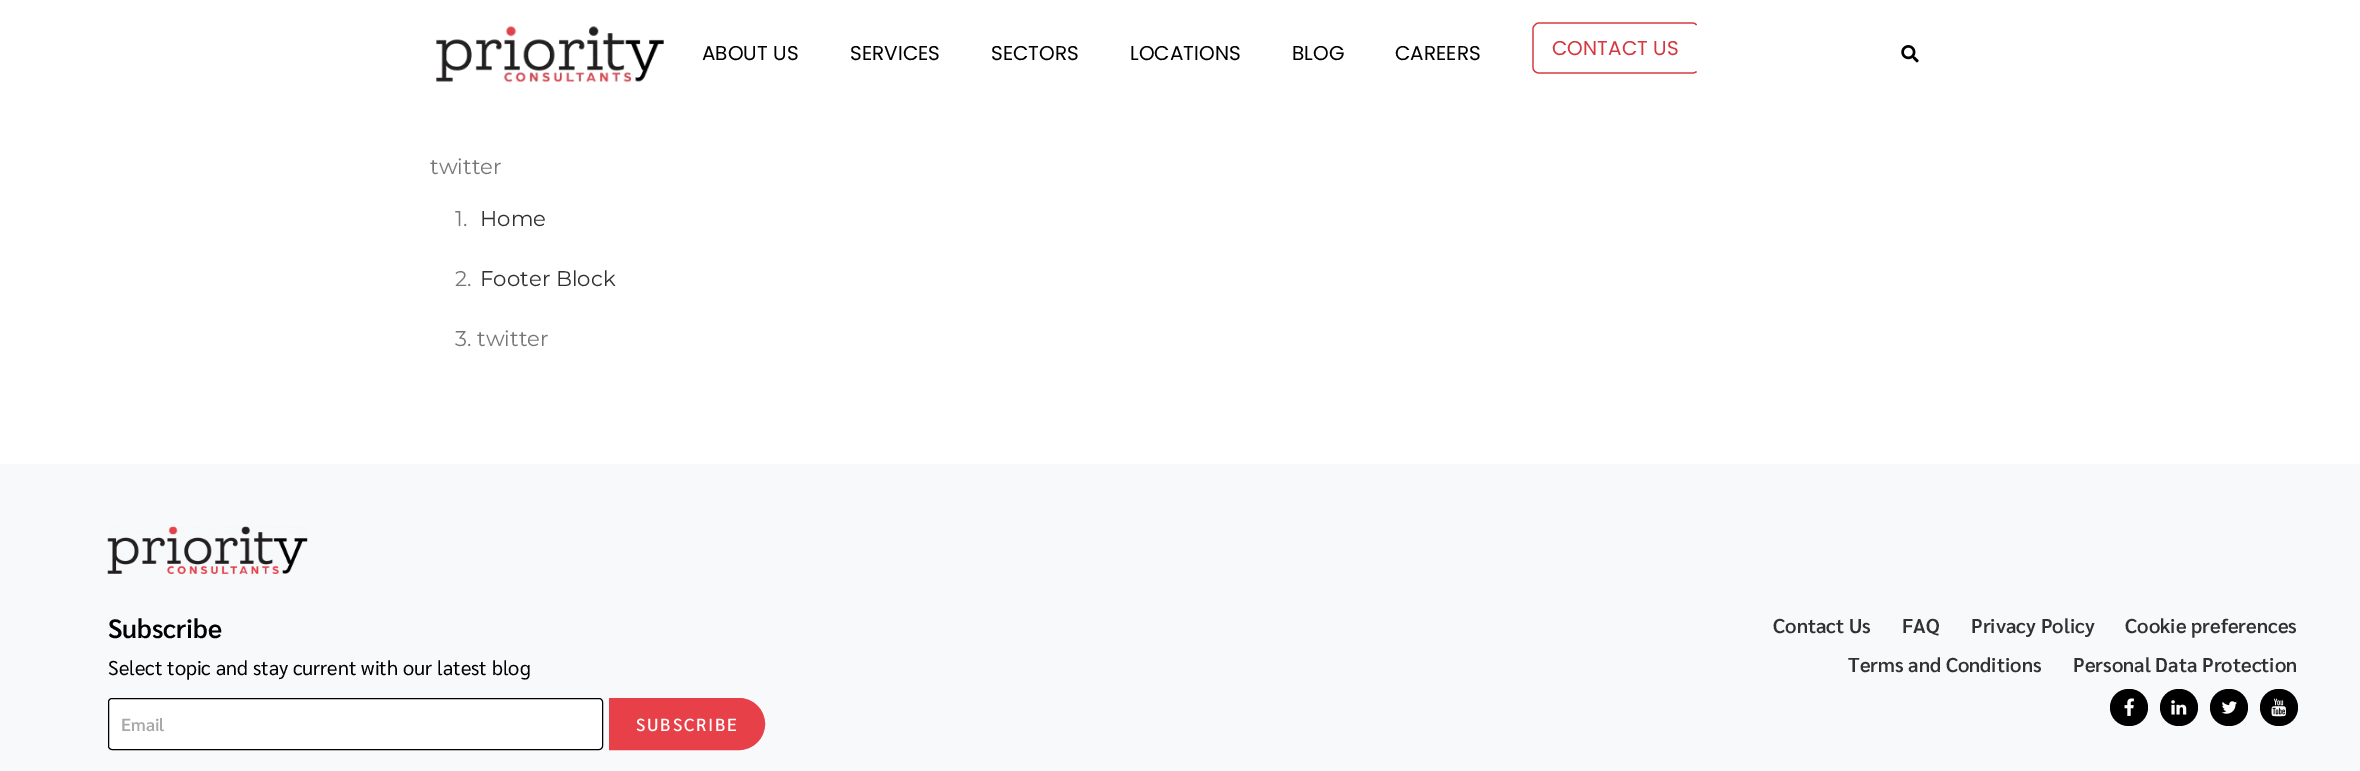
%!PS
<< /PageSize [2360 771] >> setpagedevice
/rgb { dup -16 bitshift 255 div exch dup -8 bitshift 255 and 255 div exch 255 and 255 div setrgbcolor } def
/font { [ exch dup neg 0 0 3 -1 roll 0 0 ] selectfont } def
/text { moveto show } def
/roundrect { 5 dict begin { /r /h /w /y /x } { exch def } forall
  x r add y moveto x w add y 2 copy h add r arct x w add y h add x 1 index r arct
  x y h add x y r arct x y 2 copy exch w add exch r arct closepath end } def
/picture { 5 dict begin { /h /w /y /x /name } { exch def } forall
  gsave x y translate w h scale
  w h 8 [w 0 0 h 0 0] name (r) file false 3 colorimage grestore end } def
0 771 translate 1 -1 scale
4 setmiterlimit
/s1 { /Poppins-Regular 20 font 16#000000 rgb } def
/s2 { /Poppins-Regular 20 font 16#D43841 rgb } def
/s3 { /Montserrat-Regular 21.25 font 16#777777 rgb } def
/s4 { /Montserrat-Regular 21.25 font 16#303133 rgb } def
/s5 { /Sarabun-SemiBold 26.5 font 16#000000 rgb } def
/s6 { /Sarabun-Regular 20 font 16#000000 rgb } def
/s7 { /Sarabun-SemiBold 17.5 font 16#A9A9A9 rgb } def
/s8 { /Sarabun-SemiBold 20 font 16#303133 rgb } def
16#FFFFFF rgb
0 0 2360 771 rectfill
(pic1.raw) 436 26 228 56 picture
s1
(ABOUT US) 702 60 text
(SERVICES) 850 60 text
(SECTORS) 991 60 text
(LOCATIONS) 1130 60 text
(BLOG) 1292 60 text
(CAREERS) 1395 60 text
16#D43841 rgb
1.2 setlinewidth
1696.5 71.5 moveto 1695.5 72.5 1694 73 1692.5 73 curveto 1539 73 lineto 1537.5 73 1536 72.5 1535 71.5 curveto 1533.5 70.5 1533 69 1533 67.5 curveto 1533 29 lineto 1533 27.5 1533.5 26 1535 25 curveto 1536 23.5 1537.5 23 1539 23 curveto 1692.5 23 lineto 1694 23 1695.5 23.5 1696.5 25 curveto stroke
(CONTACT US) 1552 55 text
(pic2.raw) 1901 45 18 18 picture
s3
(twitter) 430 174 text
(1.) 455 226 text
s4
(Home) 480 226 text
s3
(2.) 455 286 text
s4
(Footer Block) 480 286 text
s3
(3. twitter) 455 346 text
16#F8F9FB rgb
0 464 2360 307 rectfill
(pic3.raw) 107 526 201 48 picture
s5
(Subscribe) 108 638 text
s6
(Select topic and stay current with our latest blog) 108 675 text
16#FFFFFF rgb
108.5 698.5 494 51 3.5 roundrect gsave fill grestore
16#000000 rgb
1 setlinewidth
stroke
s7
(Email) 121 731 text
16#E74048 rgb
609.5 698.5 moveto 739 698.5 lineto 753 698.5 764.5 710 764.5 724 curveto 764.5 738 753 749.5 739 749.5 curveto 609.5 749.5 lineto closepath gsave fill grestore
stroke
/Sarabun-Medium 17.5 font
16#FFFFFF rgb
636 731 moveto 1.75 0 (SUBSCRIBE) ashow
s8
(Contact Us) 1773 633 text
(FAQ) 1902 633 text
(Privacy Policy) 1971 633 text
(Cookie preferences) 2125 633 text
(Terms and Conditions) 1848 672 text
(Personal Data Protection) 2073 672 text
16#000000 rgb
2110 689 38 37 18.5 roundrect fill
(pic4.raw) 2124 698 10 18 picture
2160 689 38 37 18.5 roundrect fill
(pic5.raw) 2171 700 16 15 picture
2210 689 38 37 18.5 roundrect fill
(pic6.raw) 2221 701 16 13 picture
2260 689 38 37 18.5 roundrect fill
(pic7.raw) 2271 698 15 19 picture
showpage
